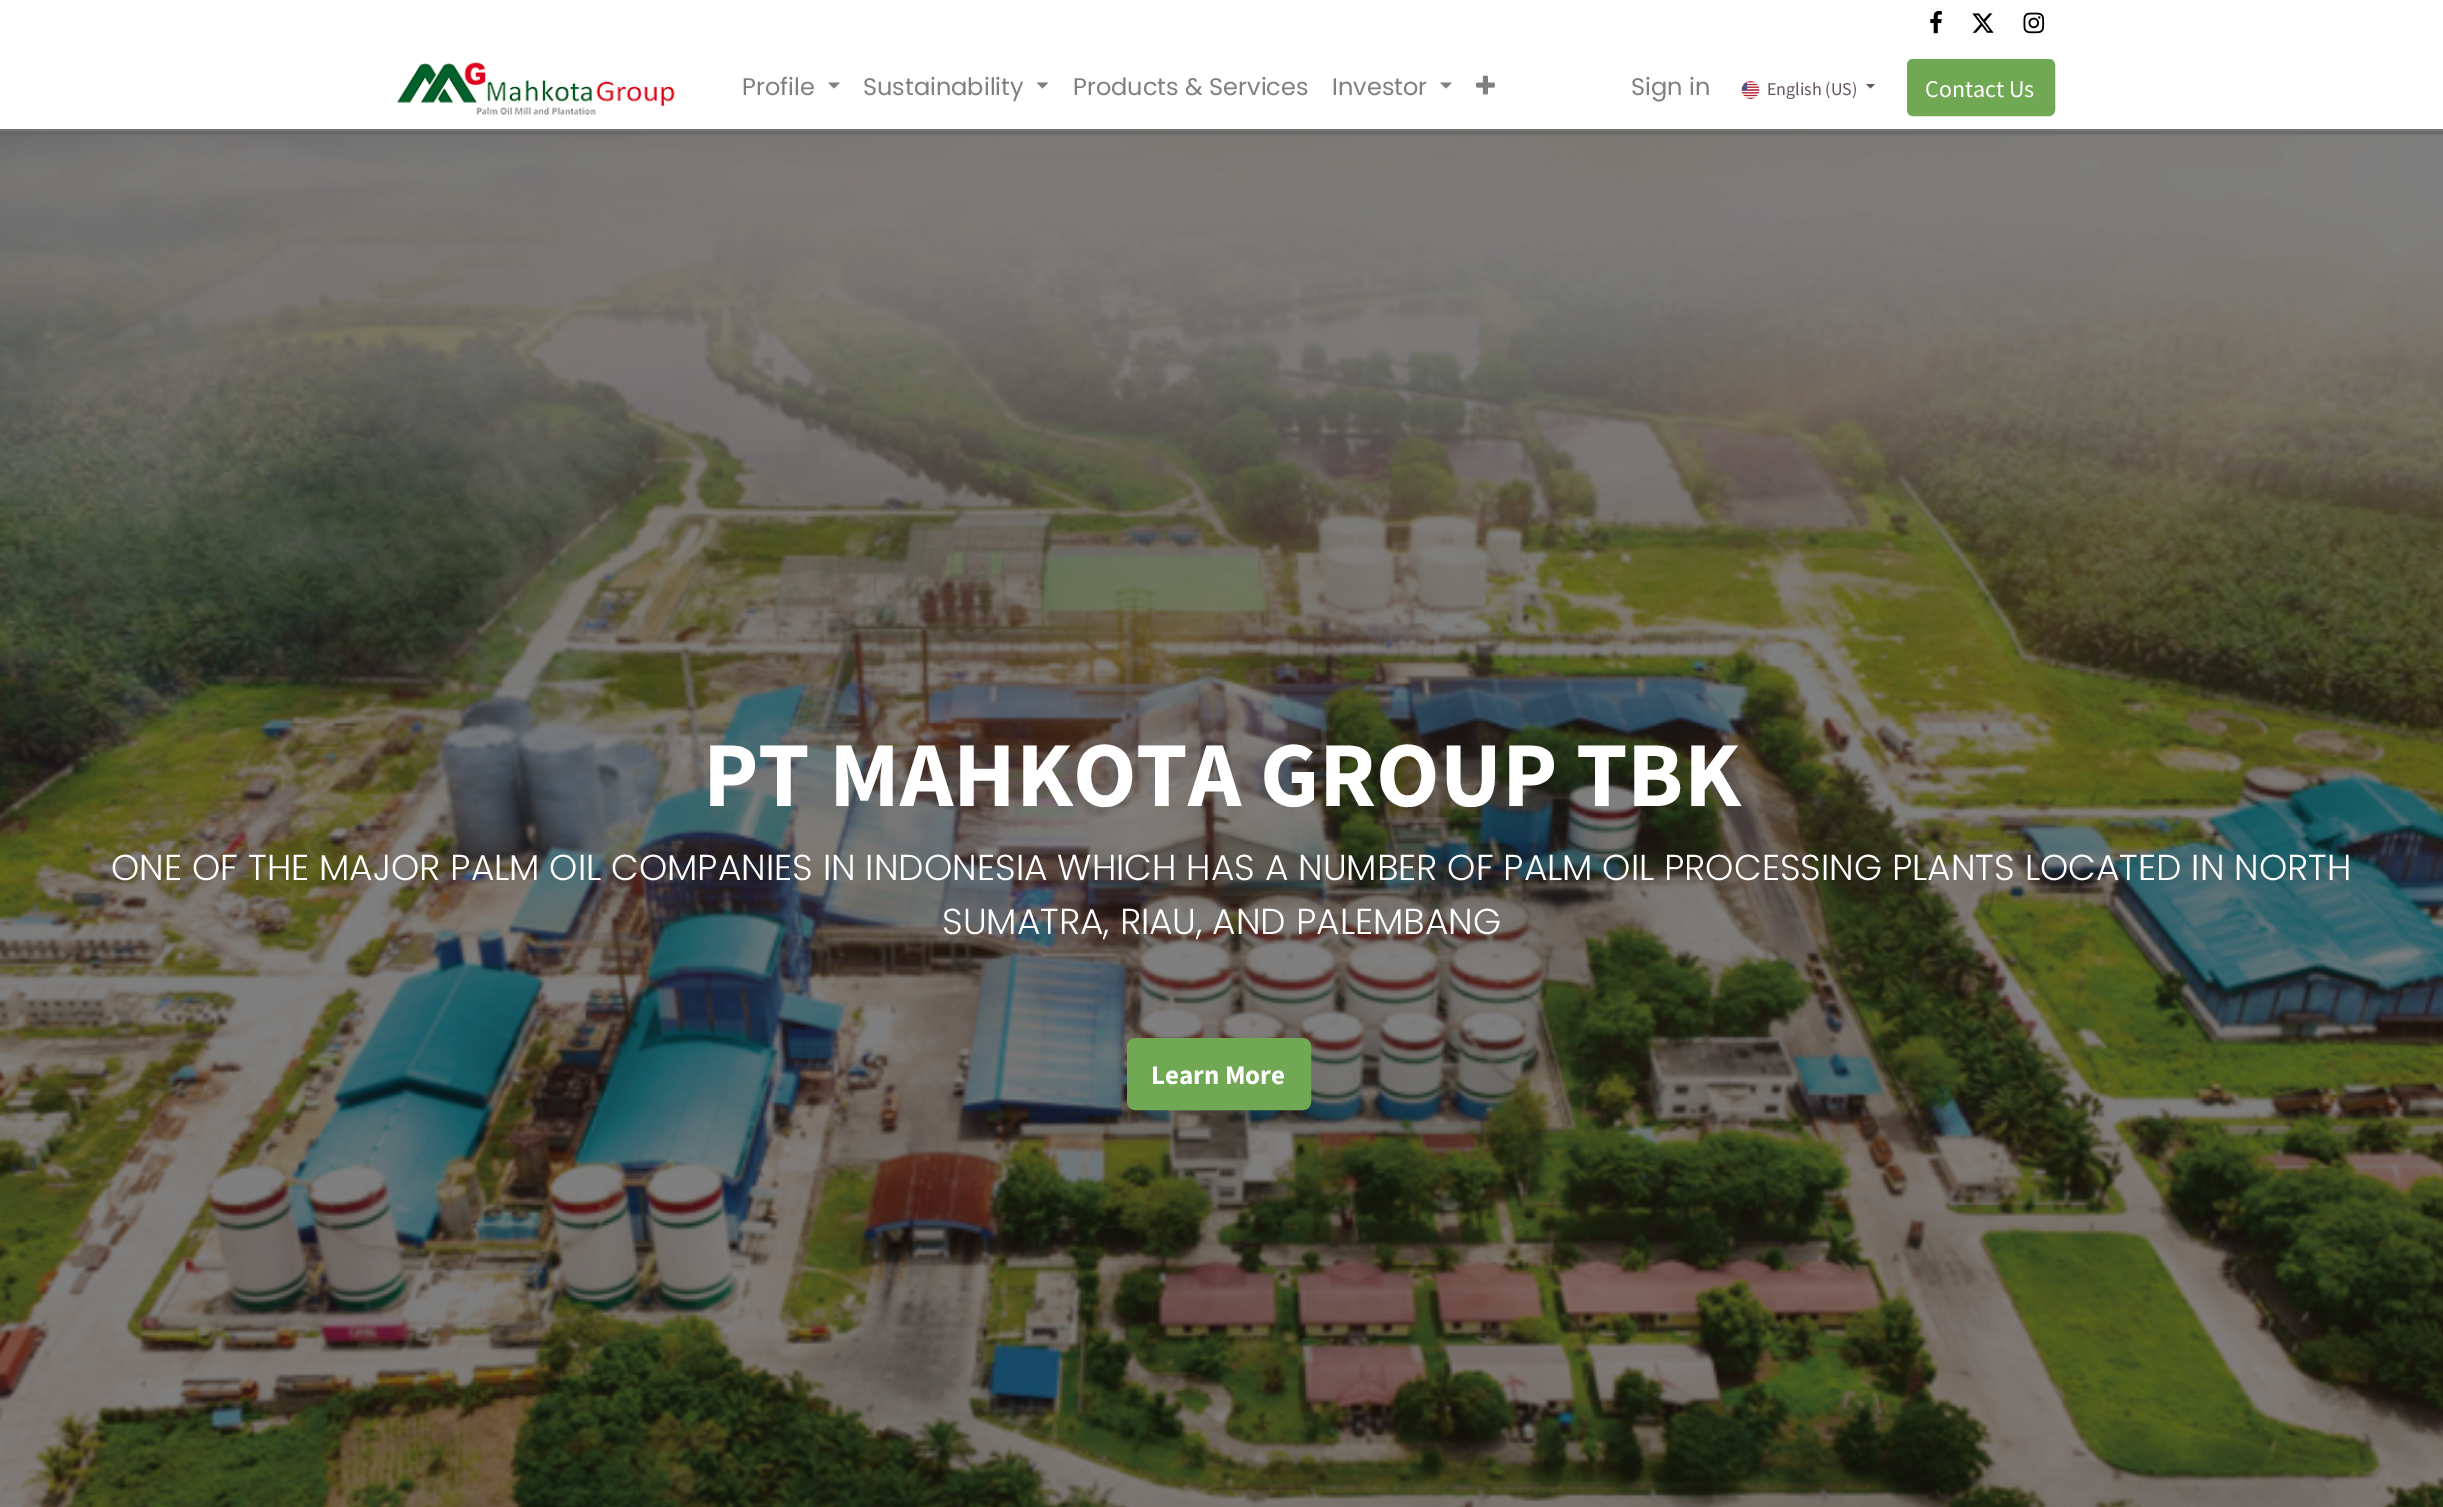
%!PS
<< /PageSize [2443 1507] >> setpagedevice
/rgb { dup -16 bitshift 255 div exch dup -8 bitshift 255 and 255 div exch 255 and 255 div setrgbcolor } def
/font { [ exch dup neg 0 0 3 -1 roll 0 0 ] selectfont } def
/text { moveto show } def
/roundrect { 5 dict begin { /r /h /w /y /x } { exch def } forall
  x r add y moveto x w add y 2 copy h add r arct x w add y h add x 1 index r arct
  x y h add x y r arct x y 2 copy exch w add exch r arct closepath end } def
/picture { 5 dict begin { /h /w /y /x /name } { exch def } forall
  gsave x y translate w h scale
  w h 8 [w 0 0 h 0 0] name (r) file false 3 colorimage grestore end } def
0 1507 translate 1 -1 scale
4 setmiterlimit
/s1 { /Poppins-Regular 24 font 16#808080 rgb } def
/s2 { /SourceSansPro-Regular 18 font 16#685563 rgb } def
/s3 { /SourceSansPro-Regular 24 font 16#FFFFFF rgb } def
/s4 { /SourceSansPro-Bold 93 font 16#FFFFFF rgb } def
/s5 { /Poppins-Light 36 font 16#FFFFFF rgb } def
/s6 { /SourceSansPro-Bold 27 font 16#FFFFFF rgb } def
16#FFFFFF rgb
0 0 2443 1507 rectfill
(pic1.raw) 1930 10 12 24 picture
(pic2.raw) 1972 13 22 20 picture
(pic3.raw) 2023 12 22 22 picture
(pic4.raw) 396 62 279 53 picture
s1
(Profile) 742 95 text
828 82.5 moveto 840 82.5 lineto 834 88.5 lineto closepath fill
(Sustainability) 863 95 text
1036.5 82.5 moveto 1048.5 82.5 lineto 1042.5 88.5 lineto closepath fill
(Products & Services) 1073 95 text
(Investor) 1332 95 text
1440 82.5 moveto 1452 82.5 lineto 1446 88.5 lineto closepath fill
(pic5.raw) 1476 75 19 20 picture
(Sign in) 1631 95 text
(pic6.raw) 1741 81 19 18 picture
s2
(English \(US\)) 1767 95 text
1866 84 moveto 1875 84 lineto 1870.5 88.5 lineto closepath fill
16#70A853 rgb
1908 60 146 55 5 roundrect gsave fill grestore
2 setlinewidth
stroke
s3
(Contact Us) 1925 97 text
(pic7.raw) 0 129 2443 1378 picture
s4
(PT MAHKOTA GROUP TBK) 703 806 text
s5
(ONE OF THE MAJOR PALM OIL COMPANIES IN INDONESIA WHICH HAS A NUMBER OF PALM OIL PROCESSING PLANTS LOCATED IN NORTH) 111 880 text
(SUMATRA, RIAU, AND PALEMBANG) 942 934 text
16#70A853 rgb
1128 1039 182 70 7 roundrect gsave fill grestore
stroke
s6
(Learn More) 1151 1084 text
showpage
